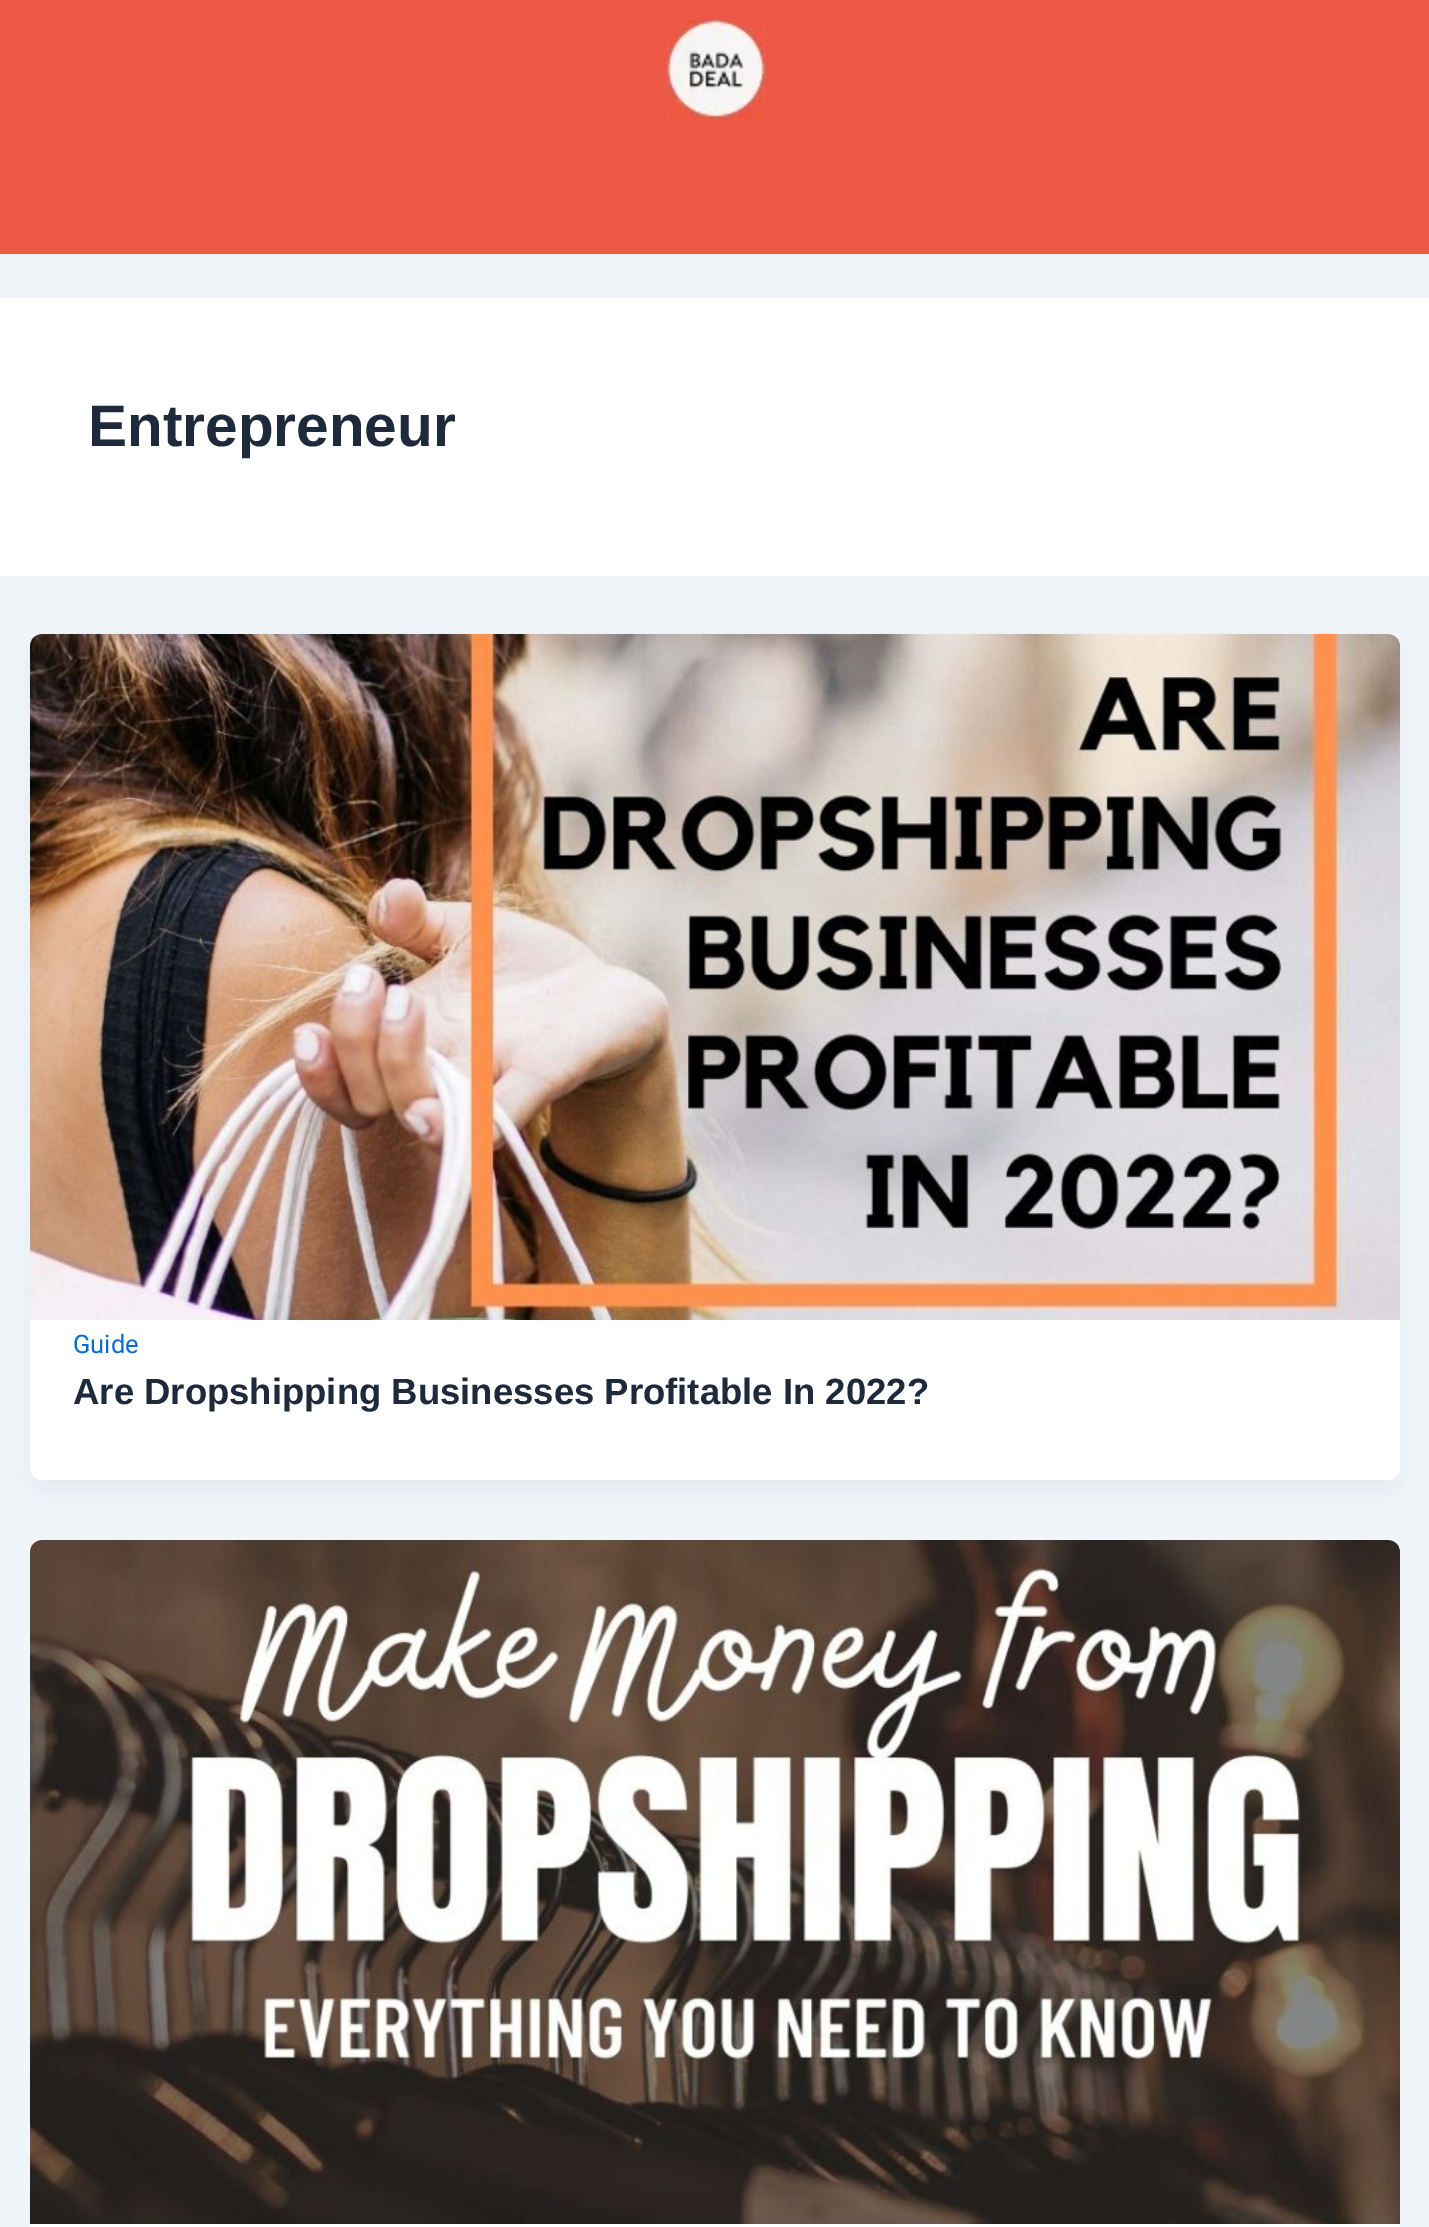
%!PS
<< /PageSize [1429 2227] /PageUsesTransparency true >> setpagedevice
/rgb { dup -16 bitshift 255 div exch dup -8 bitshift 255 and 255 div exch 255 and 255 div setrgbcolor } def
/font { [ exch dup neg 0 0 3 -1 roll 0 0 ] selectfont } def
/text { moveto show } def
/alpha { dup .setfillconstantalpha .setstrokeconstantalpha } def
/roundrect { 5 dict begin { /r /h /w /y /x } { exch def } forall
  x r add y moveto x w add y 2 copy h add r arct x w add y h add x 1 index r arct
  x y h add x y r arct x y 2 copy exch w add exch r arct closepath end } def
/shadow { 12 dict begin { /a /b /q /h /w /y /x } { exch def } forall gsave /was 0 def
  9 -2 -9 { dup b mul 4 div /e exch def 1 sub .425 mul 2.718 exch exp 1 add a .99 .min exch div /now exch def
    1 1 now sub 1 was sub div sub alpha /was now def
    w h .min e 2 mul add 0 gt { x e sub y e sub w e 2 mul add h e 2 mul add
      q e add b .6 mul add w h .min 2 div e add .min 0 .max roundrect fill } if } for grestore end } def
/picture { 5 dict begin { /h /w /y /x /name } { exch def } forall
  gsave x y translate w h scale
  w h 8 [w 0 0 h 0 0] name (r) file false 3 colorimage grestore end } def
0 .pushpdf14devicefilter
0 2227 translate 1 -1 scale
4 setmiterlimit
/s1 { /LiberationSans-Bold 58.5 font 16#1E293B rgb } def
/s2 { /Roboto-Regular 25.5 font 16#046BD2 rgb } def
/s3 { /LiberationSans-Bold 36.5 font 16#1E293B rgb } def
16#F0F5FA rgb
0 0 1429 2227 rectfill
16#EC5845 rgb
0 0 1429 254 rectfill
(pic1.raw) 666 20 100 100 picture
16#FFFFFF rgb
0 298 1429 278 rectfill
s1
(Entrepreneur) 88 446 text
16#101828 rgb
34 650 1362 838 8 15 0.05 shadow
16#FFFFFF rgb
30 634 1370 846 12 roundrect fill
(pic2.raw) 30 634 1370 686 picture
s2
(Guide) 73 1353 text
s3
(Are Dropshipping Businesses Profitable In 2022?) 73 1404 text
16#FFFFFF rgb
30 1540 1370 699 12 roundrect fill
(pic3.raw) 30 1540 1370 684 picture
.poppdf14devicefilter showpage
